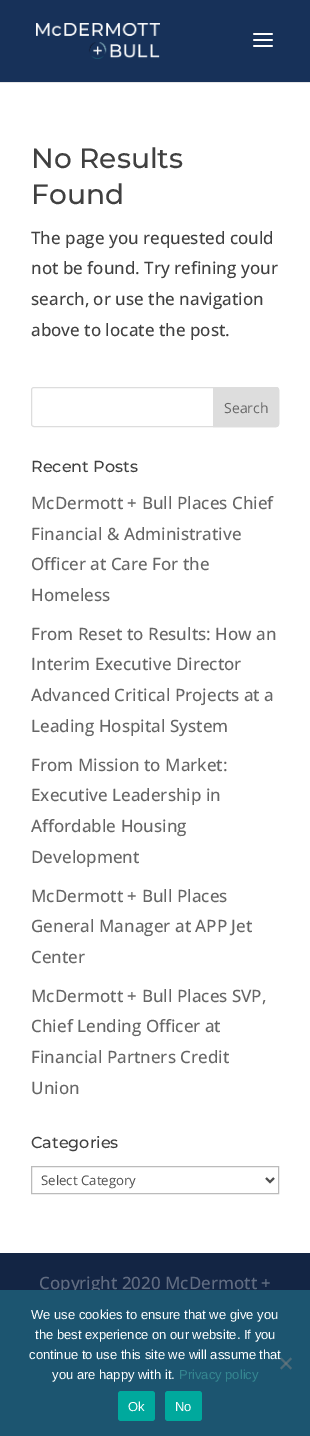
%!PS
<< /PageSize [310 1436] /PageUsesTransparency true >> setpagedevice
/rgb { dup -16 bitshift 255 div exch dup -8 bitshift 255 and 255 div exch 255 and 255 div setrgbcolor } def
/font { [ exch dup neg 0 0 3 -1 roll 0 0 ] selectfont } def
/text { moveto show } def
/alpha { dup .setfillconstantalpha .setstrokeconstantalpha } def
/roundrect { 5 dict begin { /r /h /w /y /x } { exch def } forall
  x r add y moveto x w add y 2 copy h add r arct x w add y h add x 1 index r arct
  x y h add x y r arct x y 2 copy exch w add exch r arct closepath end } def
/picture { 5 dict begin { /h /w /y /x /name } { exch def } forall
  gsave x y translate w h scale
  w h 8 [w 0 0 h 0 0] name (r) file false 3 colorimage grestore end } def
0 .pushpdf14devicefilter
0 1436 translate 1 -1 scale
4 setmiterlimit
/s1 { /Montserrat-Thin 28 font 16#404040 rgb } def
/s2 { /OpenSans-Medium 17 font 16#404040 rgb } def
/s3 { /OpenSans-Regular 14 font 16#666666 rgb } def
/s4 { /Montserrat-Thin 16 font 16#404040 rgb } def
/s5 { /OpenSans-Medium 17 font 16#666666 rgb } def
/s6 { /OpenSans-Regular 13.25 font 16#4E4E4E rgb } def
/s7 { /OpenSans-Medium 17 font 16#616D82 rgb } def
/s8 { /LiberationSans-Regular 13 font 16#FFFFFF rgb } def
/s9 { /LiberationSans-Regular 13 font 16#348690 rgb } def
16#FFFFFF rgb
0 0 310 1436 rectfill
16#E6E6E6 rgb
0 82 310 1 rectfill
16#173159 rgb
0 0 310 82 rectfill
(pic1.raw) 36 23 124 36 picture
(pic2.raw) 253 33 20 14 picture
s1
(No Results) 31 168 text
(Found) 31 204 text
s2
(The page you requested could) 31 244 text
(not be found. Try refining your) 31 274 text
(search, or use the navigation) 31 305 text
(above to locate the post.) 31 336 text
16#DDDDDD rgb
31.5 387.5 247 39 2.5 roundrect stroke
213.5 387.5 moveto 276 387.5 lineto 277.5 387.5 278.5 388.5 278.5 390 curveto 278.5 424 lineto 278.5 425.5 277.5 426.5 276 426.5 curveto 213.5 426.5 lineto closepath gsave fill grestore
stroke
s3
(Search) 224 413 text
s4
(Recent Posts) 31 472 text
s5
(McDermott + Bull Places Chief) 31 509 text
(Financial & Administrative) 31 540 text
(Officer at Care For the) 31 570 text
(Homeless) 31 601 text
(From Reset to Results: How an) 31 640 text
(Interim Executive Director) 31 670 text
(Advanced Critical Projects at a) 31 701 text
(Leading Hospital System) 31 732 text
(From Mission to Market:) 31 771 text
(Executive Leadership in) 31 801 text
(Affordable Housing) 31 832 text
(Development) 31 863 text
(McDermott + Bull Places) 31 902 text
(General Manager at APP Jet) 31 932 text
(Center) 31 963 text
(McDermott + Bull Places SVP,) 31 1002 text
(Chief Lending Officer at) 31 1032 text
(Financial Partners Credit) 31 1063 text
(Union) 31 1094 text
s4
(Categories) 31 1148 text
16#BBBBBB rgb
31.5 1166.5 247 27 rectstroke
16#4E4E4E rgb
2 setlinewidth
266 1178 moveto 270 1182 lineto 274 1178 lineto stroke
s6
(Select Category) 41 1185 text
16#132544 rgb
0 1253 310 37 rectfill
s7
(Copyright 2020 McDermott +) 39 1289 text
16#1C5570 rgb
0 1290 310 146 rectfill
s8
(We use cookies to ensure that we give you) 31 1319 text
(the best experience on our website. If you) 35 1339 text
(continue to use this site we will assume that) 29 1359 text
(you are happy with it.) 52 1379 text
s9
(Privacy policy) 179 1379 text
16#4E6B78 rgb
290.5 1357.5 moveto 292 1359 lineto 281.5 1369.5 lineto 280 1368 lineto closepath fill
0.5 alpha
16#808080 rgb
280 1359 moveto 281.5 1357.5 lineto 292 1368 lineto 290.5 1369.5 lineto closepath fill
1 alpha
16#00A99D rgb
118 1391 37 30 3 roundrect fill
s8
(Ok) 128 1411 text
16#00A99D rgb
165 1391 37 30 3 roundrect fill
s8
(No) 175 1411 text
.poppdf14devicefilter showpage
